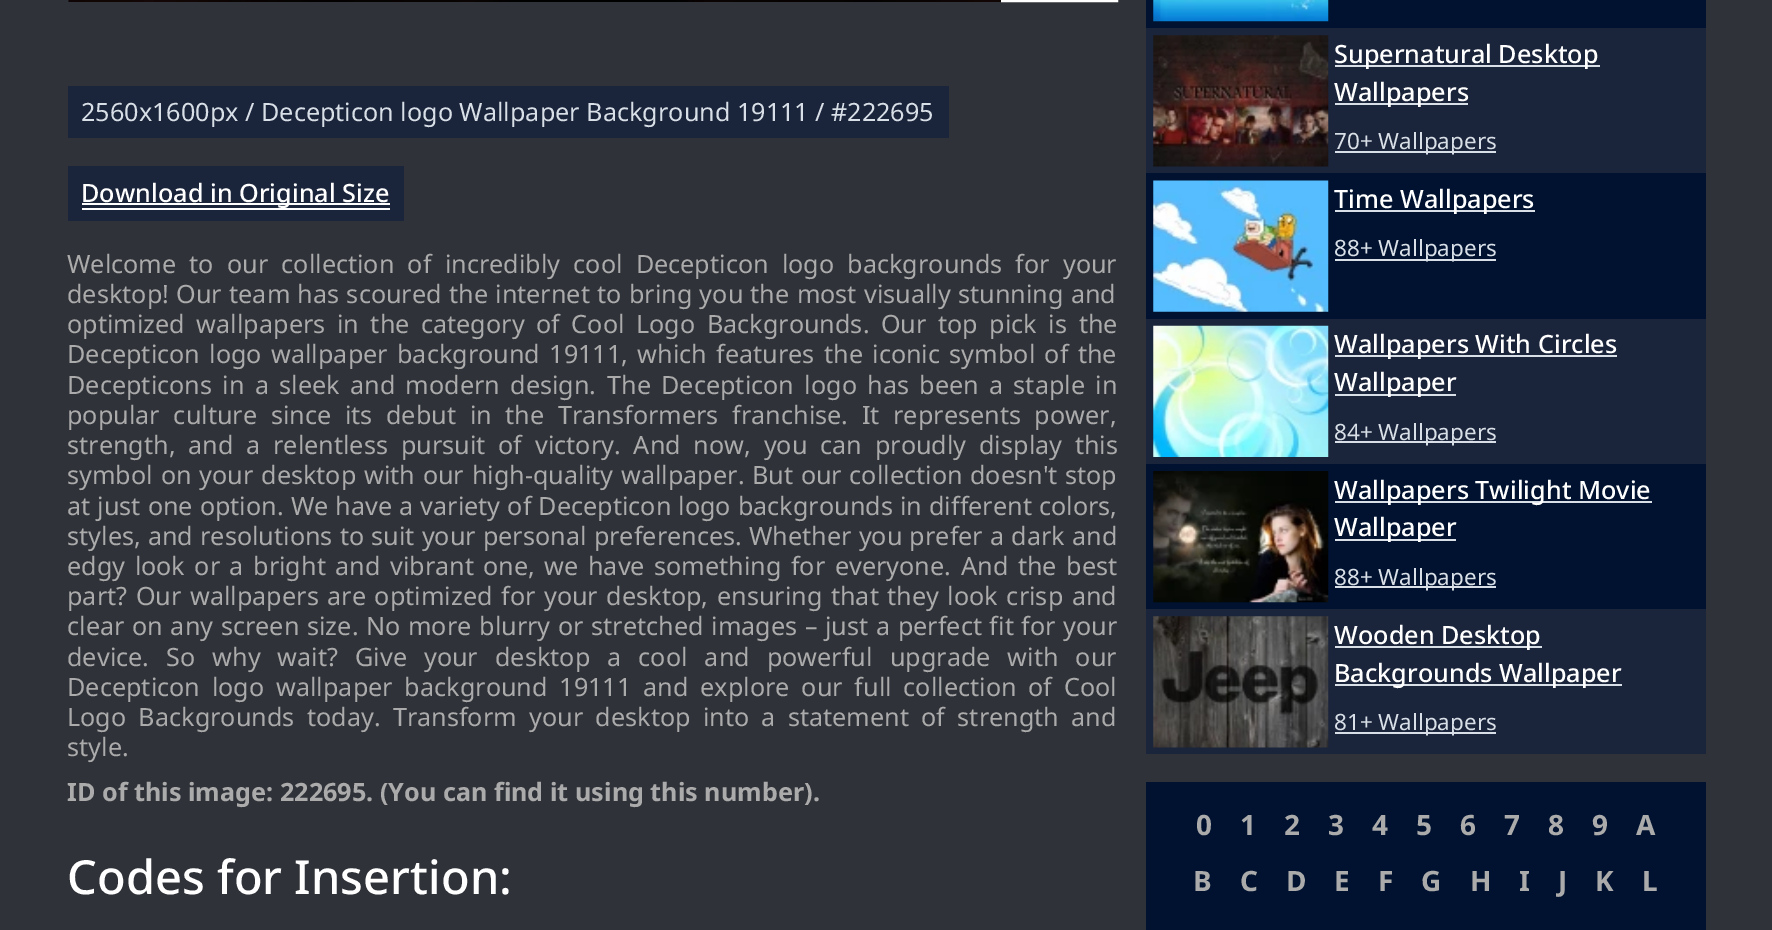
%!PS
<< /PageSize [1772 930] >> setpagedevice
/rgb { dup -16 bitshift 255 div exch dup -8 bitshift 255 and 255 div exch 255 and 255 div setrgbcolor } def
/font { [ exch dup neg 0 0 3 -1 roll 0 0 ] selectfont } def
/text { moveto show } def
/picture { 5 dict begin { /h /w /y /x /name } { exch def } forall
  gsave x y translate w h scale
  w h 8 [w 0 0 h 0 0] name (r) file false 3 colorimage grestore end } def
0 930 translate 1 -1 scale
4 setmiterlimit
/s1 { /NotoSans-Regular 25.2 font 16#D8DFE7 rgb } def
/s2 { /NotoSans-Medium 25.2 font 16#FFFFFF rgb } def
/s3 { /NotoSans-Regular 25.2 font 16#ABABAB rgb } def
/s4 { /NotoSans-Bold 25.2 font 16#ABABAB rgb } def
/s5 { /NotoSans-Medium 47 font 16#FFFFFF rgb } def
/s6 { /NotoSans-Regular 22.5 font 16#D8DFE7 rgb } def
/s7 { /NotoSans-Bold 28 font 16#ABABAB rgb } def
16#2F3238 rgb
0 0 1772 930 rectfill
(pic1.raw) 68 0 933 2 picture
16#FFFFFF rgb
2 setlinewidth
1002 -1 115 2 rectstroke
16#1A243A rgb
68 86 881 52 rectfill
s1
(2560x1600px / Decepticon logo Wallpaper Background 19111) 81 121 text
(/ #222695) 815 121 text
16#1A243A rgb
68 166 336 55 rectfill
16#FFFFFF rgb
82 208 308 2 rectfill
82 203 308 2 rectfill
s2
(Download in Original Size) 81 202 text
/NotoSans-Regular 25.2 font
16#ABABAB rgb
67 273 moveto 6.6 0 32 (Welcome to our collection of incredibly cool Decepticon logo backgrounds for your) widthshow
67 303 moveto 0.75 0 32 (desktop! Our team has scoured the internet to bring you the most visually stunning and) widthshow
67 333 moveto 5 0 32 (optimized wallpapers in the category of Cool Logo Backgrounds. Our top pick is the) widthshow
67 363 moveto 2.75 0 32 (Decepticon logo wallpaper background 19111, which features the iconic symbol of the) widthshow
67 394 moveto 3.75 0 32 (Decepticons in a sleek and modern design.) widthshow
607 394 moveto 3.75 0 32 (The Decepticon logo has been a staple in) widthshow
67 424 moveto 7.1 0 32 (popular culture since its debut in the Transformers franchise. It represents power,) widthshow
67 454 moveto 6.25 0 32 (strength, and a relentless pursuit of victory. And now, you can proudly display this) widthshow
67 484 moveto 1.25 0 32 (symbol on your desktop with our high-quality wallpaper.) widthshow
752 484 moveto 1 0 32 (But our collection doesn't stop) widthshow
67 515 moveto 0.5 0 32 (at just one option. We have a variety of Decepticon logo backgrounds in different colors,) widthshow
67 545 moveto 0.6 0 32 (styles, and resolutions to suit your personal preferences. Whether you prefer a dark and) widthshow
67 575 moveto 2.9 0 32 (edgy look or a bright and vibrant one, we have something for everyone.) widthshow
961 575 moveto 3 0 32 (And the best) widthshow
67 605 moveto 2 0 32 (part? Our wallpapers are optimized for your desktop, ensuring that they look crisp and) widthshow
67 635 moveto 1.1 0 32 (clear on any screen size. No more blurry or stretched images – just a perfect fit for your) widthshow
(device.) 67 666 text
166 666 moveto 10.5 0 32 (So why wait? Give your desktop a cool and powerful upgrade with our) widthshow
67 696 moveto 5.25 0 32 (Decepticon logo wallpaper background 19111 and explore our full collection of Cool) widthshow
67 726 moveto 5.75 0 32 (Logo Backgrounds today. Transform your desktop into a statement of strength and) widthshow
(style.) 67 756 text
s4
(ID of this image: 222695. \(You can find it using this number\).) 67 801 text
s5
(Codes for Insertion:) 67 894 text
16#00122F rgb
1146 0 560 609 rectfill
(pic2.raw) 1153 0 176 22 picture
16#1A243A rgb
1146 28 560 145 rectfill
(pic3.raw) 1153 35 176 132 picture
16#D8DFE7 rgb
1335 65 265 2 rectfill
s2
(Supernatural Desktop) 1334 63 text
16#D8DFE7 rgb
1335 103 133 2 rectfill
s2
(Wallpapers) 1334 101 text
16#D8DFE7 rgb
1335 151 161 2 rectfill
s6
(70+ Wallpapers) 1334 149 text
(pic4.raw) 1153 180 176 132 picture
1335 210 200 2 rectfill
s2
(Time Wallpapers) 1334 208 text
16#D8DFE7 rgb
1335 259 161 2 rectfill
s6
(88+ Wallpapers) 1334 256 text
16#1A243A rgb
1146 319 560 145 rectfill
(pic5.raw) 1153 325 176 132 picture
16#D8DFE7 rgb
1335 355 282 2 rectfill
s2
(Wallpapers With Circles) 1334 353 text
16#D8DFE7 rgb
1335 394 121 2 rectfill
s2
(Wallpaper) 1334 391 text
16#D8DFE7 rgb
1335 441 161 2 rectfill
s6
(84+ Wallpapers) 1334 440 text
(pic6.raw) 1153 471 176 132 picture
1335 501 317 2 rectfill
s2
(Wallpapers Twilight Movie) 1334 499 text
16#D8DFE7 rgb
1335 539 121 2 rectfill
s2
(Wallpaper) 1334 536 text
16#D8DFE7 rgb
1335 586 161 2 rectfill
s6
(88+ Wallpapers) 1334 585 text
16#1A243A rgb
1146 609 560 145 rectfill
(pic7.raw) 1153 616 176 132 picture
16#D8DFE7 rgb
1335 646 207 2 rectfill
s2
(Wooden Desktop) 1334 644 text
16#D8DFE7 rgb
1335 684 287 2 rectfill
s2
(Backgrounds Wallpaper) 1334 682 text
16#D8DFE7 rgb
1335 732 161 2 rectfill
s6
(81+ Wallpapers) 1334 730 text
16#00122F rgb
1146 782 560 148 rectfill
s7
(0) 1196 835 text
(1) 1240 835 text
(2) 1284 835 text
(3) 1328 835 text
(4) 1372 835 text
(5) 1416 835 text
(6) 1460 835 text
(7) 1504 835 text
(8) 1548 835 text
(9) 1592 835 text
(A) 1636 835 text
(B) 1193 891 text
(C) 1240 891 text
(D) 1286 891 text
(E) 1334 891 text
(F) 1378 891 text
(G) 1421 891 text
(H) 1470 891 text
(I) 1519 891 text
(J) 1558 891 text
(K) 1595 891 text
(L) 1642 891 text
showpage
